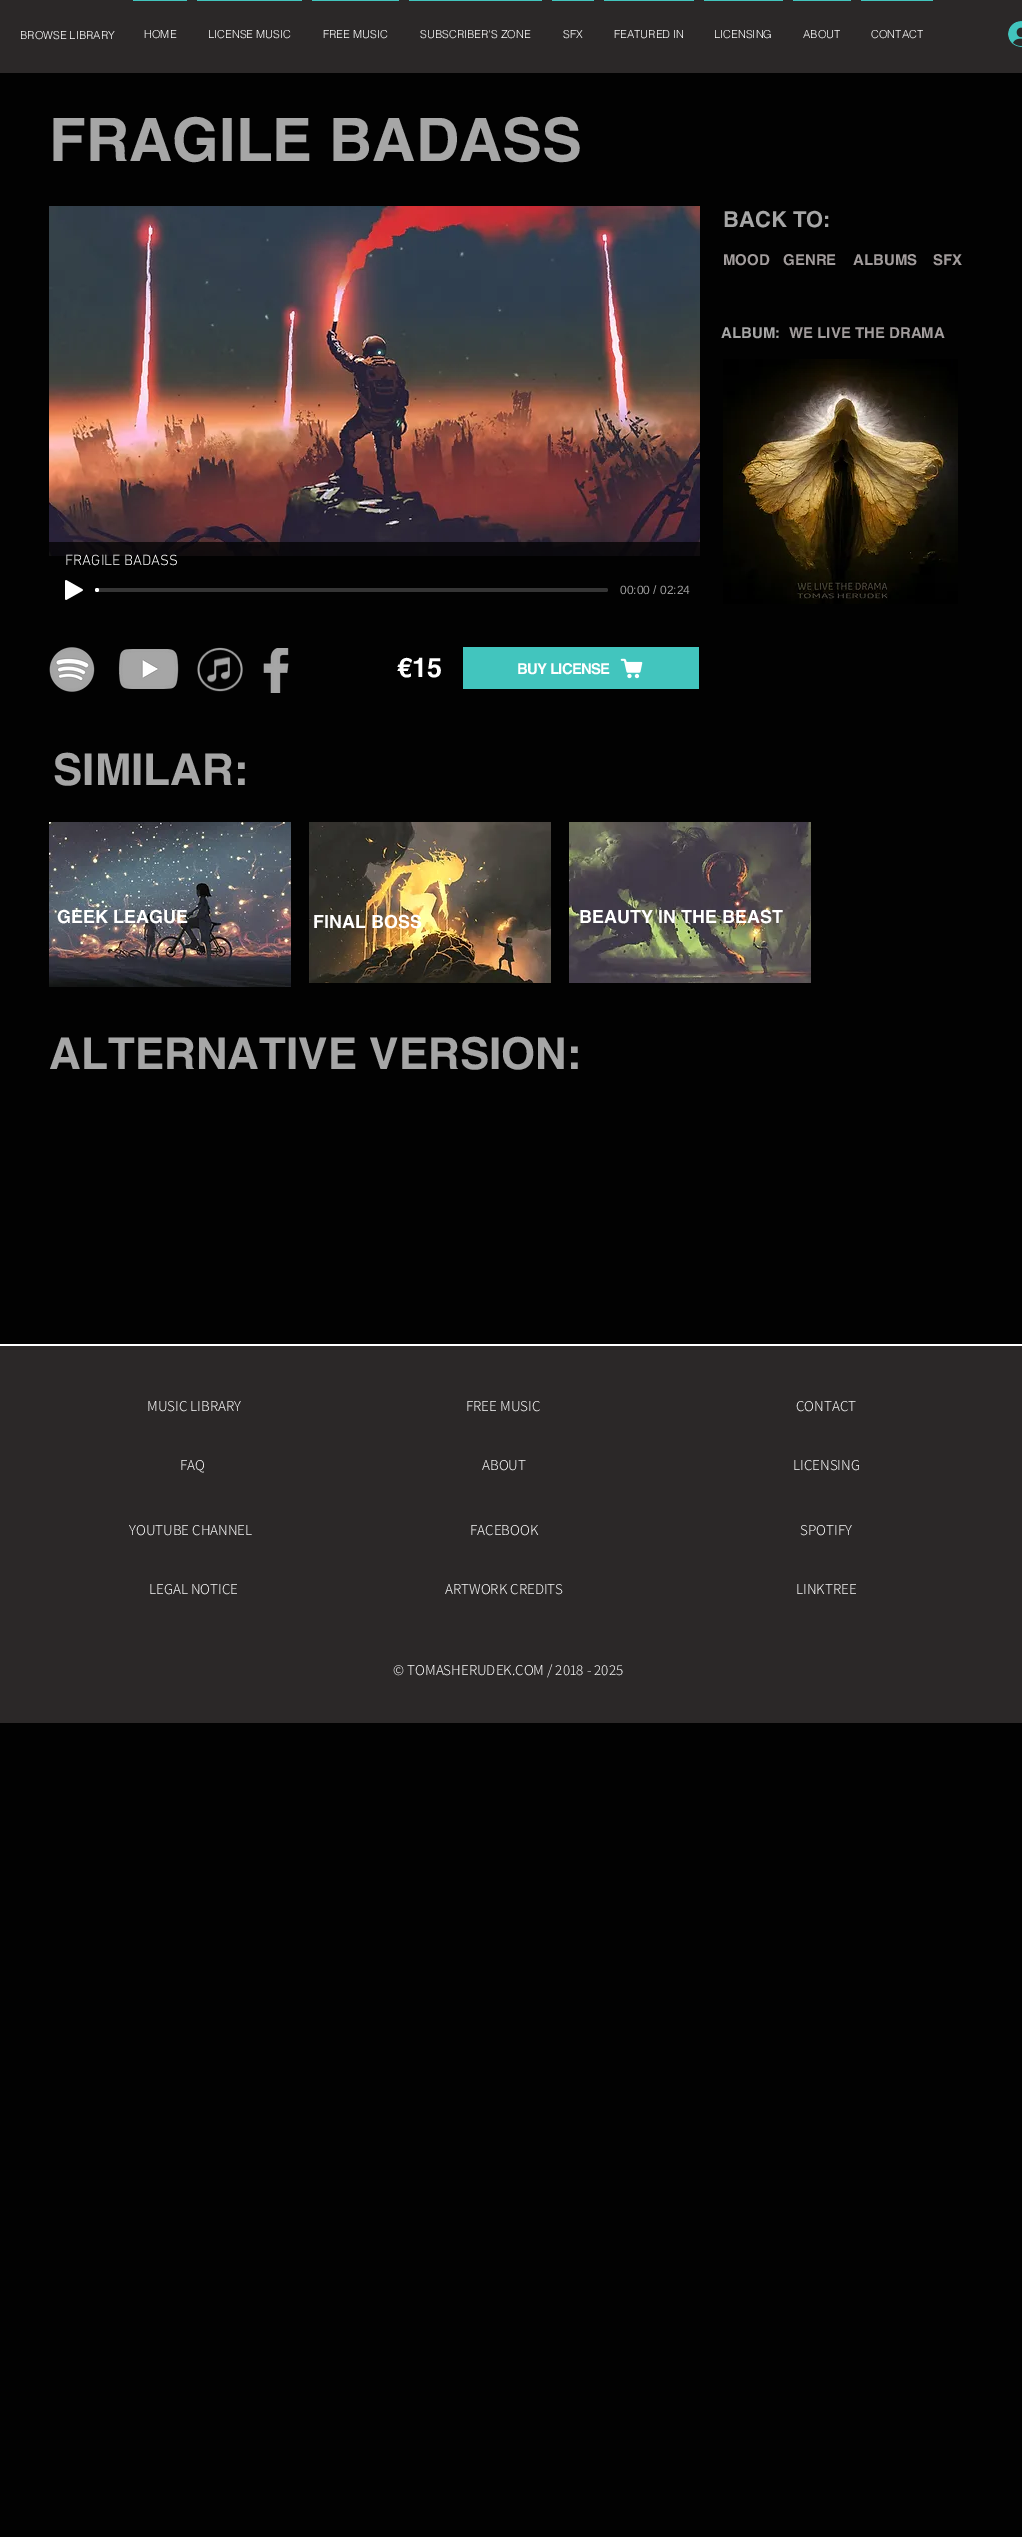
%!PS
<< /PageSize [1022 2537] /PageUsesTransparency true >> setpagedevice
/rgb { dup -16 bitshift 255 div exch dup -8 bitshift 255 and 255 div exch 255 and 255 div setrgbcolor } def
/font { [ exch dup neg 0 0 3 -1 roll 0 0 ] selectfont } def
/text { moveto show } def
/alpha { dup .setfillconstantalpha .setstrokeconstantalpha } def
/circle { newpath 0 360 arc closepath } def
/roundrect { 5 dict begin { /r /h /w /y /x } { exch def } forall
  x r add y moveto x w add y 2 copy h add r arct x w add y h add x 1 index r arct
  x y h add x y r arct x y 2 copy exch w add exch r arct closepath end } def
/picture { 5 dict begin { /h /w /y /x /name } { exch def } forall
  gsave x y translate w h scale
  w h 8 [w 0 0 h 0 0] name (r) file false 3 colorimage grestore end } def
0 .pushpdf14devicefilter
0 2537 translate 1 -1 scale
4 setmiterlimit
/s1 { /helvetica-Light 11 font 16#FFFFFF rgb } def
/s2 { /helvetica-Bold 60 font 16#A6A6A6 rgb } def
/s3 { /helvetica-Bold 22 font 16#A6A6A6 rgb } def
/s4 { /helvetica-Bold 15 font 16#A29C9C rgb } def
/s5 { /helvetica-Bold 15 font 16#A6A6A6 rgb } def
/s6 { /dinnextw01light-Light 15 font 16#FFFFFF rgb } def
/s7 { /LiberationSans-Regular 12 font 16#9A9A9A rgb } def
/s8 { /helvetica-Bold 27 font 16#FFFFFF rgb } def
/s9 { /helvetica-Bold 44 font 16#A6A6A6 rgb } def
/s10 { /helvetica-Bold 18 font 16#FFFFFF rgb } def
/s11 { /Assistant-Light 15 font 16#FFFFFF rgb } def
16#020202 rgb
0 0 1022 2537 rectfill
16#2B2828 rgb
0 0 1022 73 rectfill
s1
(BROWSE LIBRARY) 20 39 text
16#42C5BE rgb
133 0 54 1 rectfill
s1
(HOME) 144 38 text
16#42C5BE rgb
197 0 105 1 rectfill
s1
(LICENSE MUSIC) 208 38 text
16#42C5BE rgb
312 0 87 1 rectfill
s1
(FREE MUSIC) 323 38 text
16#42C5BE rgb
409 0 133 1 rectfill
s1
(SUBSCRIBER'S ZONE) 420 38 text
16#42C5BE rgb
552 0 42 1 rectfill
s1
(SFX) 563 38 text
16#42C5BE rgb
604 0 90 1 rectfill
s1
(FEATURED IN) 614 38 text
16#42C5BE rgb
704 0 79 1 rectfill
s1
(LICENSING) 714 38 text
16#42C5BE rgb
793 0 58 1 rectfill
s1
(ABOUT) 803 38 text
16#42C5BE rgb
861 0 72 1 rectfill
s1
(CONTACT) 871 38 text
(pic1.raw) 1008 21 14 26 picture
s2
(FRAGILE BADASS) 49 161 text
(pic2.raw) 49 206 651 350 picture
s3
(BACK TO:) 723 227 text
s4
(MOOD) 723 265 text
(GENRE) 783 265 text
(ALBUMS) 853 265 text
(SFX) 933 265 text
s5
(ALBUM:) 721 338 text
s4
(WE LIVE THE DRAMA) 789 338 text
0.76 alpha
16#020202 rgb
49 542 651 14 rectfill
1 alpha
s6
(FRAGILE BADASS) 65 565 text
(pic3.raw) 65 580 18 20 picture
16#353535 rgb
97 588 511 4 2 roundrect fill
16#FFFFFF rgb
97 590 2 circle fill
s7
(00:00 / 02:24) 620 594 text
(pic4.raw) 723 359 235 245 picture
(pic5.raw) 49 647 46 45 picture
(pic6.raw) 118 649 61 40 picture
(pic7.raw) 197 647 46 45 picture
(pic8.raw) 263 648 26 45 picture
s8
(€15) 397 677 text
16#42C5BE rgb
463 647 236 42 rectfill
/helvetica-Bold 15 font
16#FFFFFF rgb
517 674 moveto -0.75 0 (BUY LICENSE) ashow
(pic9.raw) 620 658 23 21 picture
s9
(SIMILAR:) 53 785 text
(pic10.raw) 49 822 242 165 picture
(pic11.raw) 309 822 242 161 picture
(pic12.raw) 569 822 242 161 picture
s10
(GEEK LEAGUE) 57 923 text
(FINAL BOSS) 313 928 text
(BEAUTY IN THE BEAST) 579 923 text
s9
(ALTERNATIVE VERSION:) 49 1069 text
16#2B2828 rgb
0 1346 1022 377 rectfill
16#FFFFFF rgb
0 1344 1022 2 rectfill
s11
(MUSIC LIBRARY) 147 1411 text
(FREE MUSIC) 466 1411 text
(CONTACT) 796 1411 text
(FAQ) 180 1470 text
(ABOUT) 482 1470 text
(LICENSING) 793 1470 text
(YOUTUBE CHANNEL) 129 1535 text
(FACEBOOK) 470 1535 text
(SPOTIFY) 800 1535 text
(LEGAL NOTICE) 149 1594 text
(ARTWORK CREDITS) 445 1594 text
(LINKTREE) 796 1594 text
(© TOMASHERUDEK.COM / 2018 - 2025) 393 1675 text
.poppdf14devicefilter showpage
